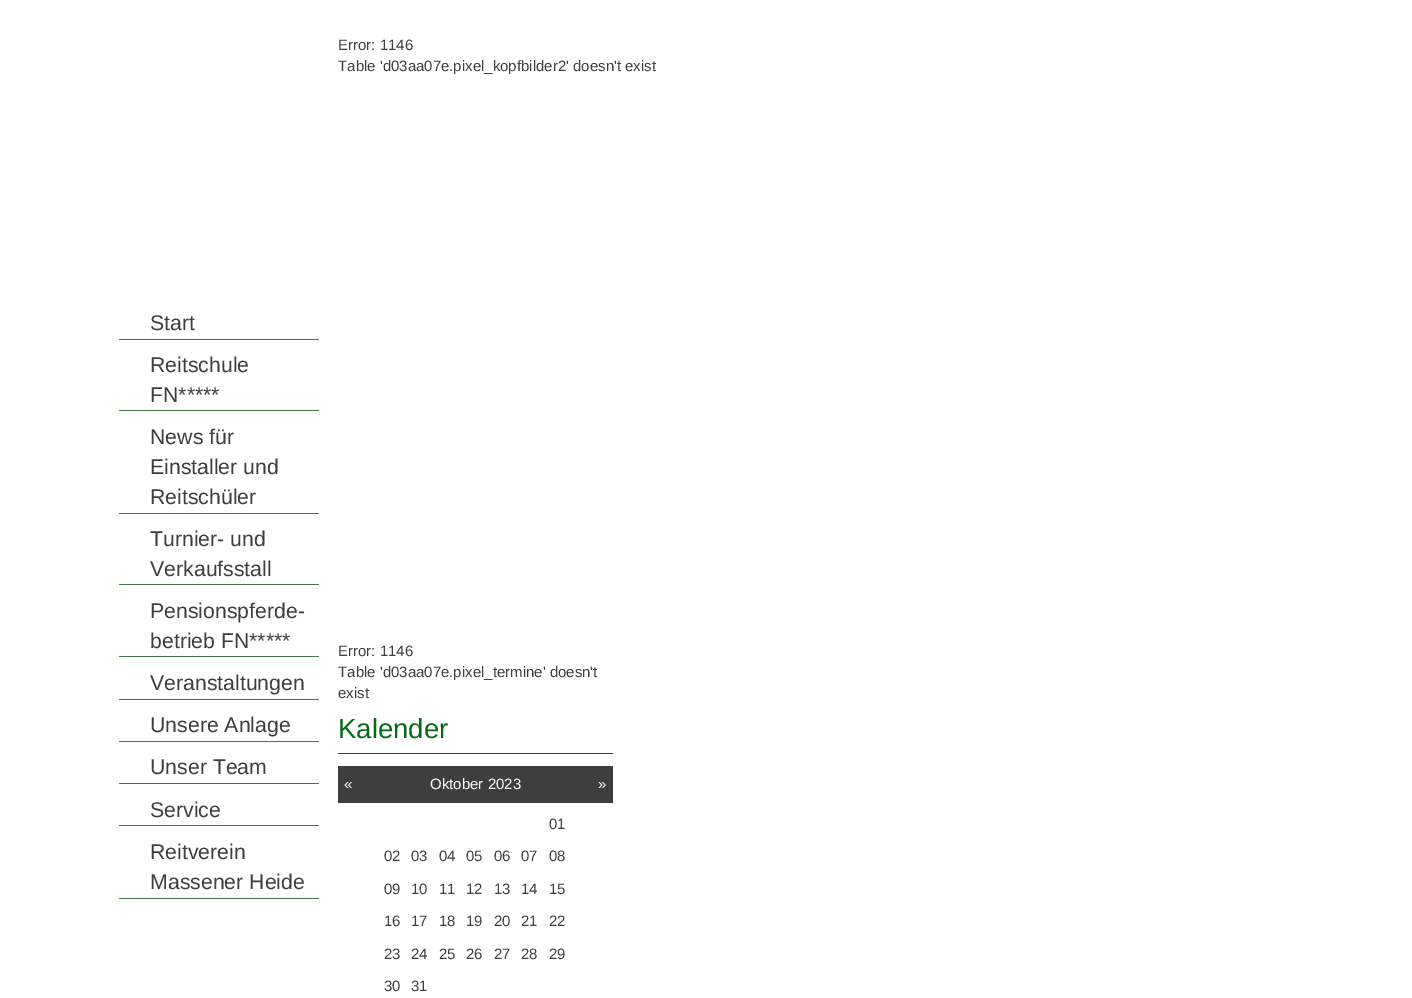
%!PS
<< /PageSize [1412 998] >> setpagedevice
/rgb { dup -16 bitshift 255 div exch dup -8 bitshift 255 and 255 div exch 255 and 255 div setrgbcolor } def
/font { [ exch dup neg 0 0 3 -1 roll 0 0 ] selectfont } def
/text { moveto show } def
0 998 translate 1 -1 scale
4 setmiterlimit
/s1 { /LiberationSans-Regular 21.25 font 16#3E3E3E rgb } def
/s2 { /LiberationSans-Regular 15 font 16#3E3E3E rgb } def
/s3 { /LiberationSans-Regular 27.5 font 16#076913 rgb } def
/s4 { /LiberationSans-Regular 15 font 16#FFFFFF rgb } def
16#FFFFFF rgb
0 0 1412 998 rectfill
16#45744A rgb
119 339 200 1 rectfill
s1
(Start) 150 330 text
16#45744A rgb
119 410 200 1 rectfill
s1
(Reitschule) 150 372 text
(FN*****) 150 402 text
16#45744A rgb
119 513 200 1 rectfill
s1
(News für) 150 444 text
(Einstaller und) 150 474 text
(Reitschüler) 150 504 text
16#45744A rgb
119 584 200 1 rectfill
s1
(Turnier- und) 150 546 text
(Verkaufsstall) 150 576 text
16#45744A rgb
119 656 200 1 rectfill
s1
(Pensionspferde-) 150 618 text
(betrieb FN*****) 150 648 text
16#45744A rgb
119 699 200 1 rectfill
s1
(Veranstaltungen) 150 690 text
16#45744A rgb
119 741 200 1 rectfill
s1
(Unsere Anlage) 150 732 text
16#45744A rgb
119 783 200 1 rectfill
s1
(Unser Team) 150 774 text
16#45744A rgb
119 825 200 1 rectfill
s1
(Service) 150 817 text
16#45744A rgb
119 898 200 1 rectfill
s1
(Reitverein) 150 859 text
(Massener Heide) 150 889 text
s2
(Error: 1146) 338 50 text
(Table 'd03aa07e.pixel_kopfbilder2' doesn't exist) 338 71 text
(Error: 1146) 338 656 text
(Table 'd03aa07e.pixel_termine' doesn't) 338 677 text
(exist) 338 698 text
338 753 275 1 rectfill
s3
(Kalender) 338 738 text
16#3E3E3E rgb
338 766 275 37 rectfill
s4
(«) 344 789 text
(Oktober 2023) 430 789 text
(») 598 789 text
s2
(01) 549 829 text
(02) 384 861 text
(03) 411 861 text
(04) 439 861 text
(05) 466 861 text
(06) 494 861 text
(07) 521 861 text
(08) 549 861 text
(09) 384 894 text
(10) 411 894 text
(11) 439 894 text
(12) 466 894 text
(13) 494 894 text
(14) 521 894 text
(15) 549 894 text
(16) 384 926 text
(17) 411 926 text
(18) 439 926 text
(19) 466 926 text
(20) 494 926 text
(21) 521 926 text
(22) 549 926 text
(23) 384 959 text
(24) 411 959 text
(25) 439 959 text
(26) 466 959 text
(27) 494 959 text
(28) 521 959 text
(29) 549 959 text
(30) 384 991 text
(31) 411 991 text
showpage
